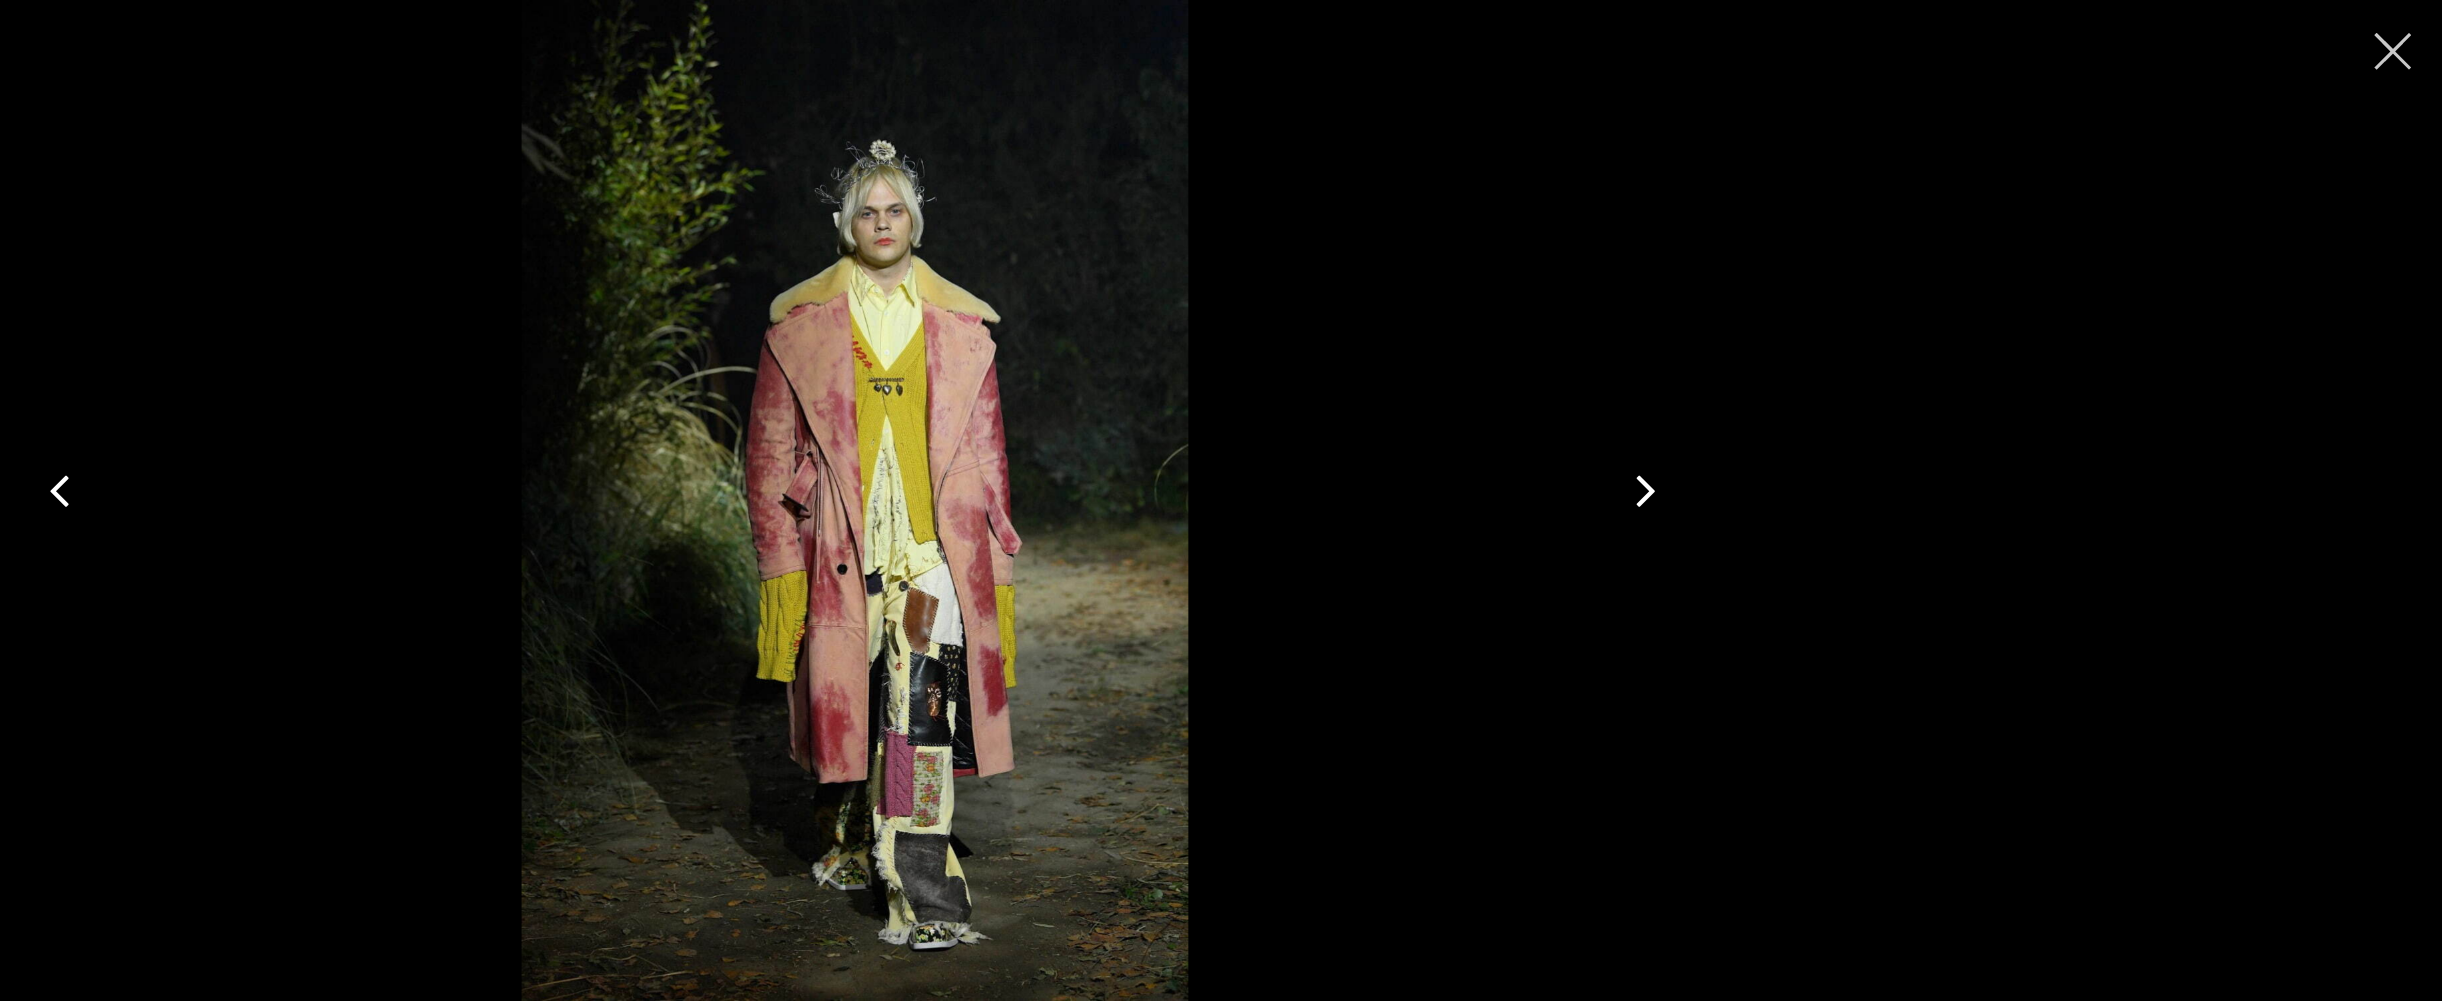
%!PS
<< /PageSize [2442 1001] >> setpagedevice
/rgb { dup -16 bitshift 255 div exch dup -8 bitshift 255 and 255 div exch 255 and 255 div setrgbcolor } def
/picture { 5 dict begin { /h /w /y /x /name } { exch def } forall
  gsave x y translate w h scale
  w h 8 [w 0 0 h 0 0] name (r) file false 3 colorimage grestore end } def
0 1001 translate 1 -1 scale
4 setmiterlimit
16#000000 rgb
0 0 2442 1001 rectfill
(pic1.raw) 50 475 19 32 picture
(pic2.raw) 521 0 668 1001 picture
(pic3.raw) 1636 475 19 32 picture
16#C8C8C8 rgb
2411 35 moveto 2409 33 lineto 2393 49 lineto 2376.5 33 lineto 2374.5 35 lineto 2390.5 51.5 lineto 2374.5 67.5 lineto 2376.5 69.5 lineto 2393 53.5 lineto 2409 69.5 lineto 2411 67.5 lineto 2395 51.5 lineto closepath fill
showpage
